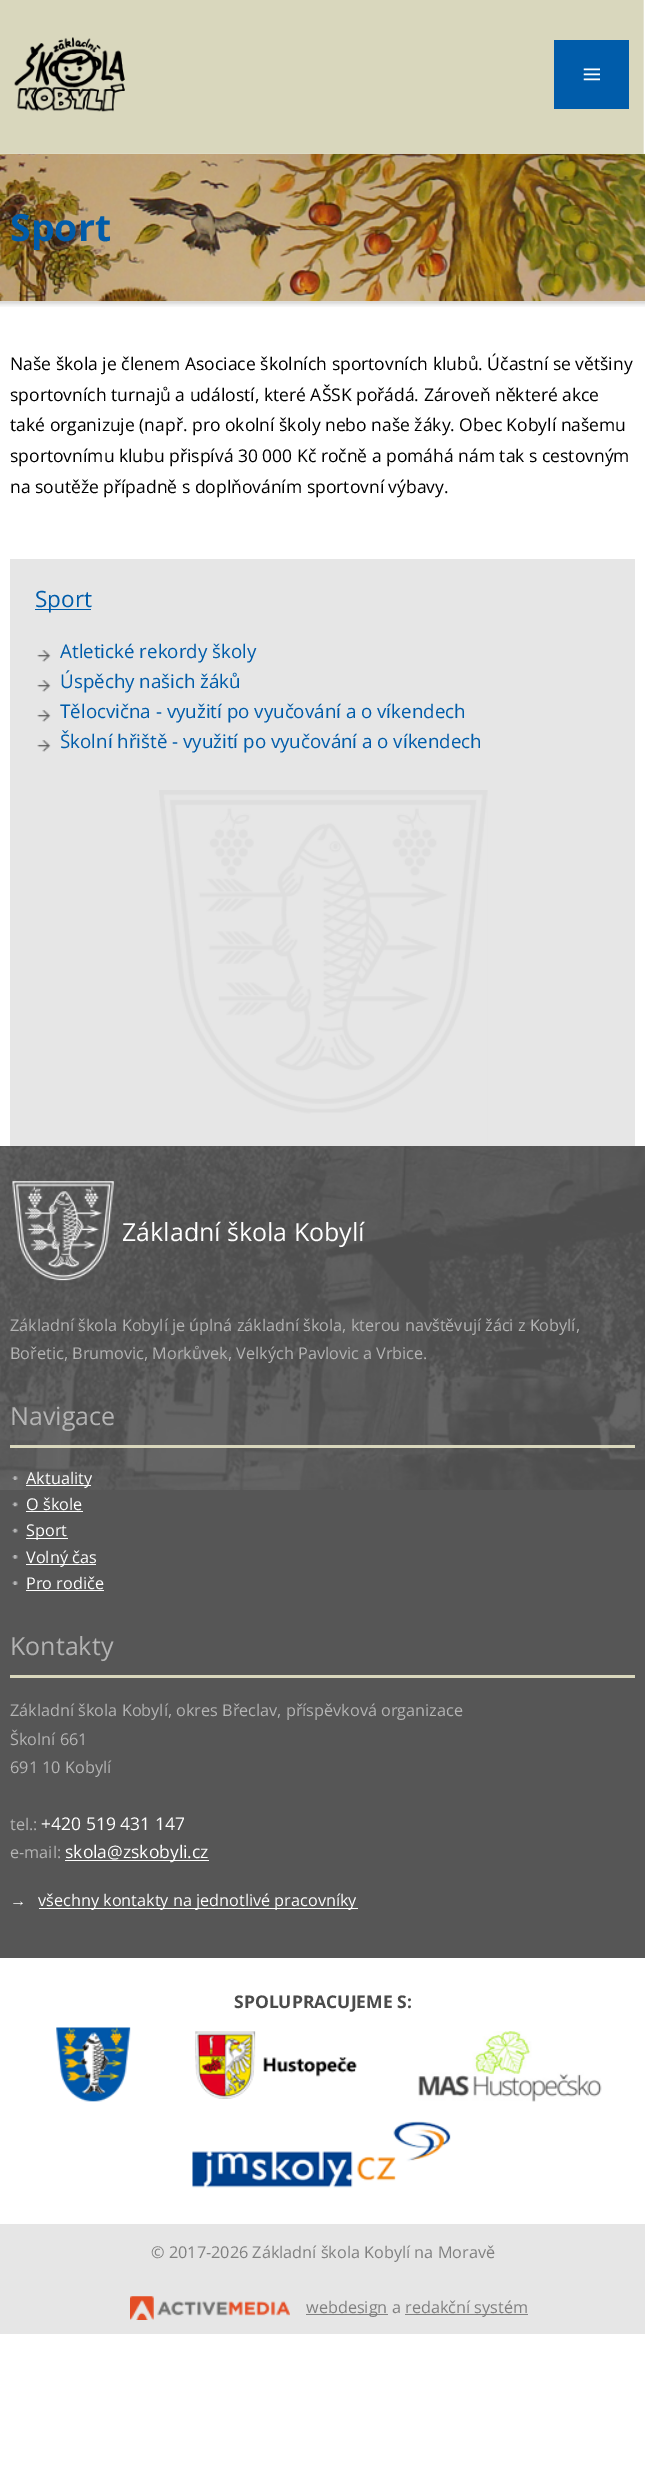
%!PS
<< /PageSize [645 2473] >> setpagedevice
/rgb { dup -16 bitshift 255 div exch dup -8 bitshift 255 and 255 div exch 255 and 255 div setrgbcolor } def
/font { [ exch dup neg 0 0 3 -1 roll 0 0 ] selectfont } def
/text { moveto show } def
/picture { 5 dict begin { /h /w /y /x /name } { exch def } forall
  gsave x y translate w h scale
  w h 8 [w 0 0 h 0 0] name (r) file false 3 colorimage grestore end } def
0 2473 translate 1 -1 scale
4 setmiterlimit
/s1 { /LiberationSerif-Regular 35 font 16#FFFFFF rgb } def
/s2 { /OpenSans-Bold 37.5 font 16#005CAA rgb } def
/s3 { /OpenSans-Regular 17.5 font 16#000000 rgb } def
/s4 { /OpenSans-Regular 22.5 font 16#005CAA rgb } def
/s5 { /OpenSans-Regular 18.75 font 16#005CAA rgb } def
/s6 { /OpenSans-Regular 25 font 16#FFFFFF rgb } def
/s7 { /OpenSans-Regular 16.25 font 16#B4B4B4 rgb } def
/s8 { /OpenSans-Regular 25 font 16#B4B4B4 rgb } def
/s9 { /OpenSans-Regular 16.25 font 16#FFFFFF rgb } def
/s10 { /OpenSans-Regular 17.5 font 16#FFFFFF rgb } def
/s11 { /LiberationSans-Regular 16.25 font 16#FFFFFF rgb } def
/s12 { /OpenSans-Bold 17.5 font 16#4B4B4B rgb } def
/s13 { /OpenSans-Regular 16.25 font 16#808080 rgb } def
16#FFFFFF rgb
0 0 645 2473 rectfill
(pic3.raw) 0 153 645 149 picture
(pic1.raw) 0 0 645 154 picture
(pic2.raw) 14 37 111 75 picture
16#005CAA rgb
554 40 75 69 rectfill
s1
(≡) 582 86 text
s2
(Sport) 10 241 text
(pic4.raw) 0 301 645 6 picture
s3
(Naše škola je členem Asociace školních sportovních klubů. Účastní se většiny) 10 370 text
(sportovních turnajů a událostí, které AŠSK pořádá. Zároveň některé akce) 10 401 text
(také organizuje \(např. pro okolní školy nebo naše žáky. Obec Kobylí našemu) 10 431 text
(sportovnímu klubu přispívá 30 000 Kč ročně a pomáhá nám tak s cestovným) 10 462 text
(na soutěže případně s doplňováním sportovní výbavy.) 10 493 text
16#E6E6E6 rgb
10 559 625 587 rectfill
(pic5.raw) 159 790 329 356 picture
16#005CAA rgb
35 609 56 1 rectfill
s4
(Sport) 35 607 text
(pic6.raw) 37 650 14 12 picture
s5
(Atletické rekordy školy) 60 658 text
(pic6.raw) 37 680 14 12 picture
(Úspěchy našich žáků) 60 688 text
(pic6.raw) 37 710 14 12 picture
(Tělocvična - využití po vyučování a o víkendech) 60 718 text
(pic6.raw) 37 740 14 12 picture
(Školní hřiště - využití po vyučování a o víkendech) 60 748 text
16#565656 rgb
0 1146 645 812 rectfill
(pic7.raw) 0 1146 645 344 picture
(pic8.raw) 12 1181 102 100 picture
s6
(Základní škola Kobylí) 122 1241 text
s7
(Základní škola Kobylí je úplná základní škola, kterou navštěvují žáci z Kobylí,) 10 1331 text
(Bořetic, Brumovic, Morkůvek, Velkých Pavlovic a Vrbice.) 10 1359 text
16#D9D7BD rgb
10 1445 625 3 rectfill
s8
(Navigace) 10 1425 text
(pic9.raw) 12 1476 6 4 picture
16#FFFFFF rgb
26 1485 65 1 rectfill
s9
(Aktuality) 26 1484 text
(pic10.raw) 12 1502 6 5 picture
(O škole) 26 1510 text
26 1511 57 1 rectfill
(pic11.raw) 12 1528 6 5 picture
26 1538 42 1 rectfill
(Sport) 26 1536 text
(pic12.raw) 12 1555 6 4 picture
26 1564 70 1 rectfill
(Volný čas) 26 1563 text
(pic13.raw) 12 1581 6 4 picture
(Pro rodiče) 26 1589 text
26 1590 78 1 rectfill
16#D9D7BD rgb
10 1675 625 3 rectfill
s8
(Kontakty) 10 1655 text
s7
(Základní škola Kobylí, okres Břeclav, příspěvková organizace) 10 1716 text
(Školní 661) 10 1745 text
(691 10 Kobylí) 10 1773 text
(tel.:) 10 1830 text
s10
(+420 519 431 147) 41 1830 text
s7
(e-mail:) 10 1858 text
16#FFFFFF rgb
65 1860 144 1 rectfill
s10
(skola@zskobyli.cz) 65 1858 text
s11
(→) 10 1906 text
39 1908 319 1 rectfill
s9
(všechny kontakty na jednotlivé pracovníky) 38 1906 text
s12
(SPOLUPRACUJEME S:) 234 2008 text
(pic14.raw) 56 2027 75 75 picture
(pic15.raw) 195 2031 162 68 picture
(pic16.raw) 418 2031 184 71 picture
(pic17.raw) 192 2121 259 67 picture
16#E6E6E6 rgb
0 2224 645 110 rectfill
s13
(© 2017-2026 Základní škola Kobylí na Moravě) 151 2258 text
(pic18.raw) 130 2296 160 24 picture
306 2314 82 1 rectfill
(webdesign a) 306 2313 text
405 2314 123 1 rectfill
(redakční systém) 405 2313 text
showpage
